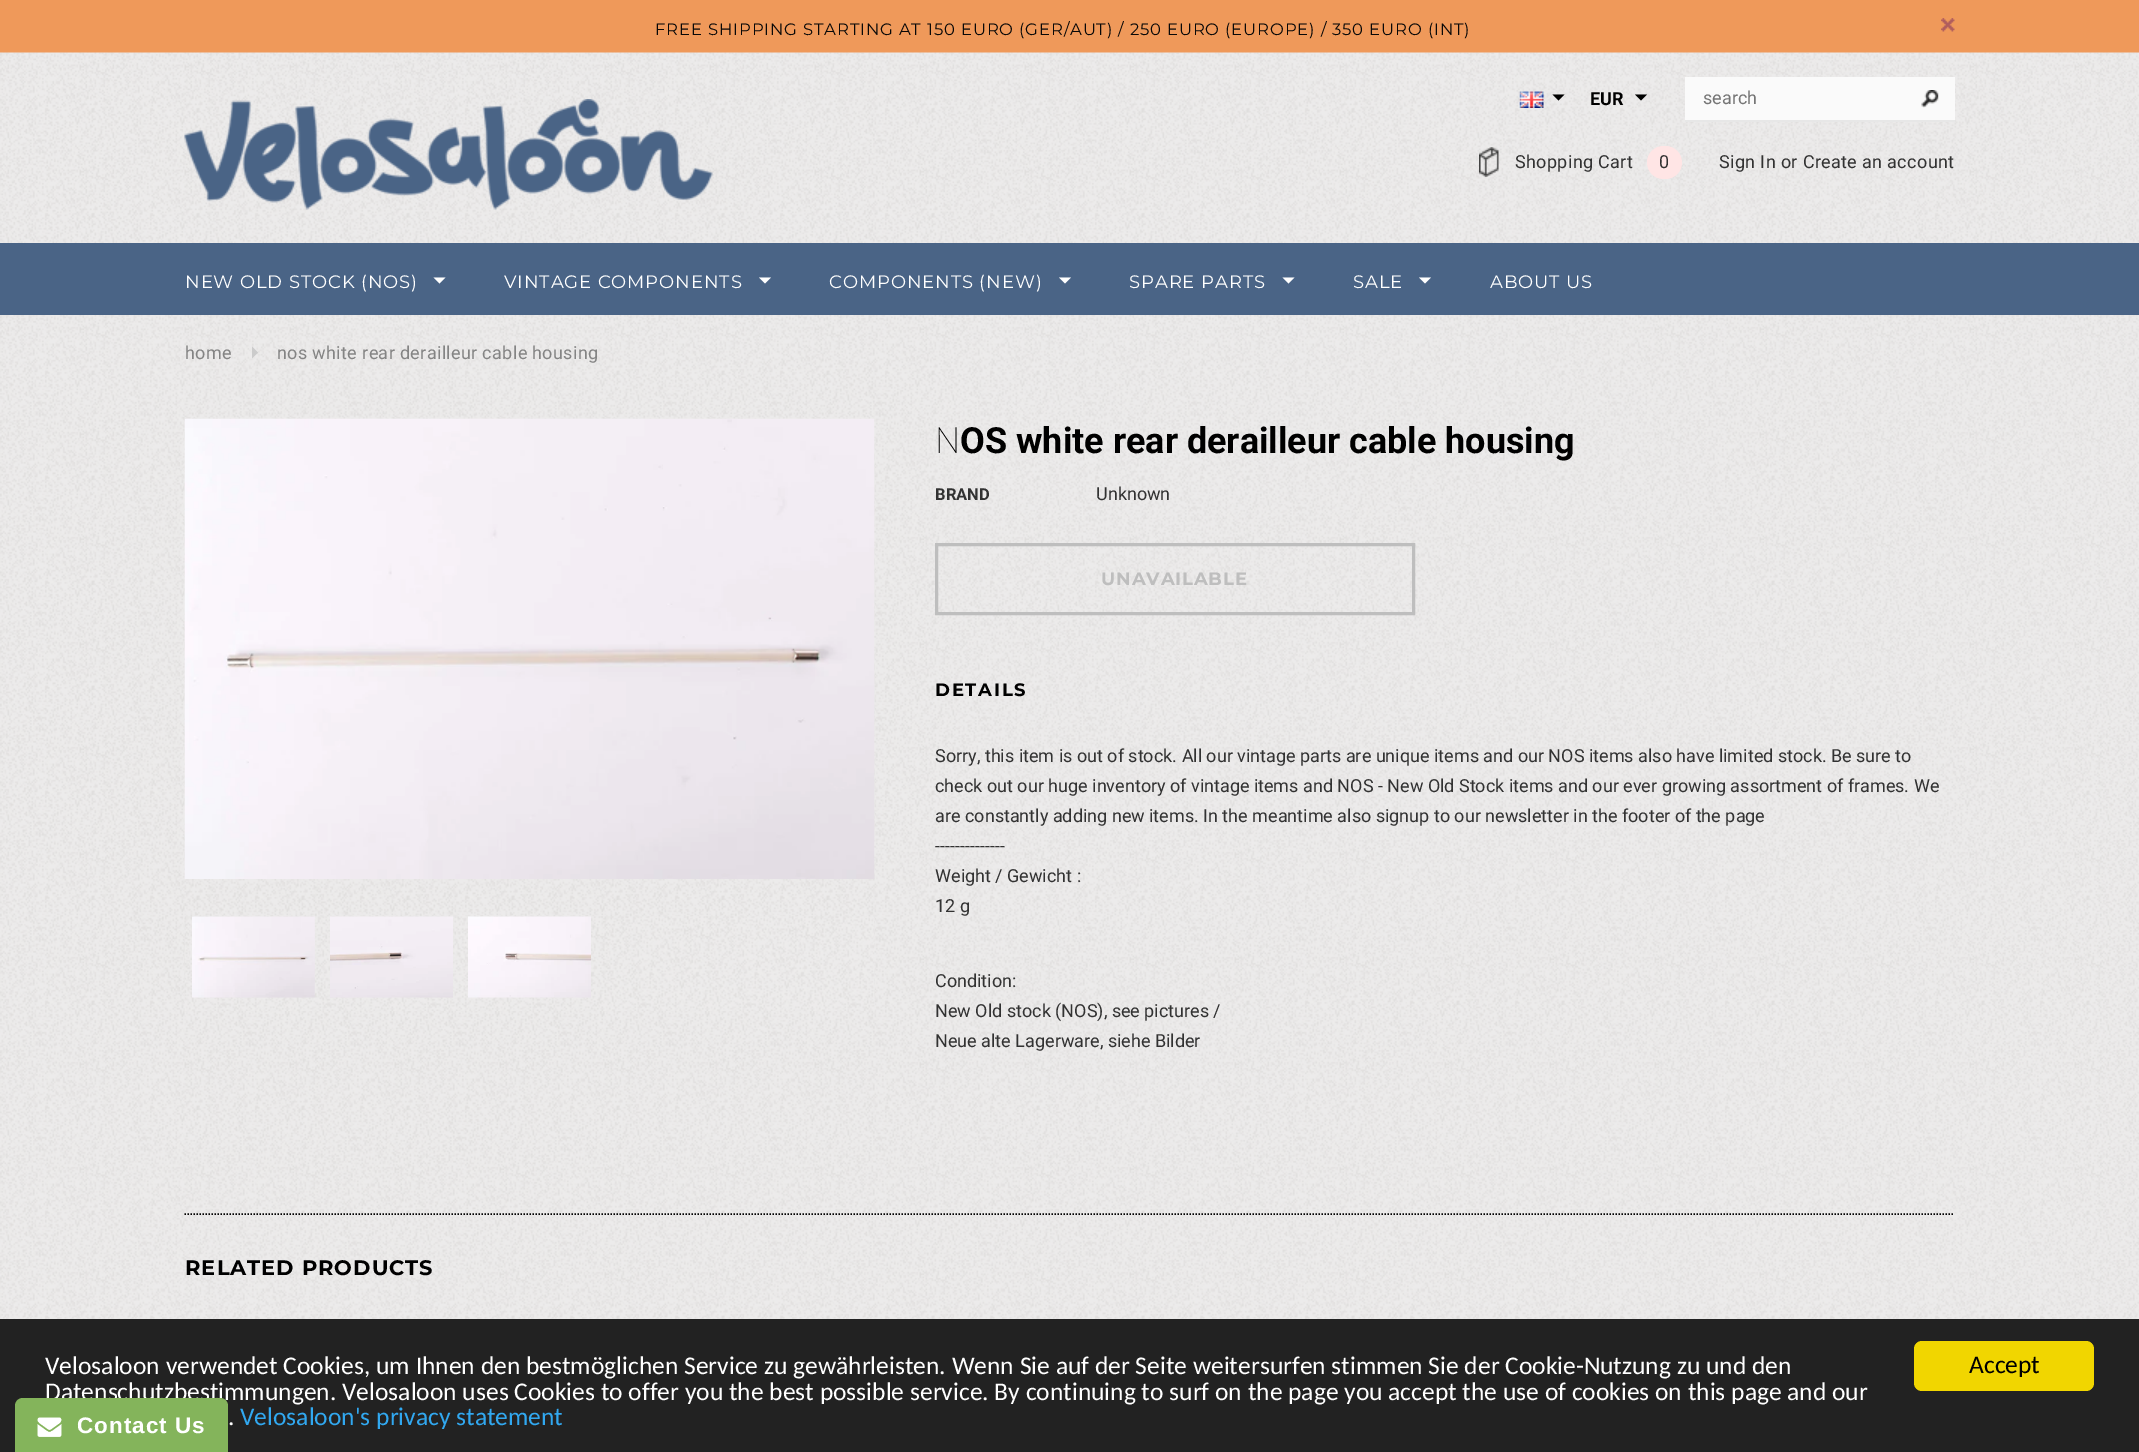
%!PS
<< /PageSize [2139 1452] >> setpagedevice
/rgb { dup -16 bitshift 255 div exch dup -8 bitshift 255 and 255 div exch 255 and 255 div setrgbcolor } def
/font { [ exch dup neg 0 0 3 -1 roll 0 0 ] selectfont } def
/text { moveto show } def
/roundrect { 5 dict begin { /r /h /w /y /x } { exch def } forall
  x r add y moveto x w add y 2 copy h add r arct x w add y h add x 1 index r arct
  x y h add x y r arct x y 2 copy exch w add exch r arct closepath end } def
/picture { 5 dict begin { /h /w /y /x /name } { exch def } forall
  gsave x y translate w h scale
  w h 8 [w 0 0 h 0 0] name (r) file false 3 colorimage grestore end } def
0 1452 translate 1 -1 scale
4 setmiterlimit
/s1 { /Roboto-Bold 18 font 16#000000 rgb } def
/s2 { /Roboto-Regular 18 font 16#757575 rgb } def
/s3 { /NotoSans-Thin 36 font 16#000000 rgb } def
/s4 { /Roboto-Bold 36 font 16#000000 rgb } def
/s5 { /Roboto-Bold 16.5 font 16#323232 rgb } def
/s6 { /Roboto-Regular 18 font 16#323232 rgb } def
/s7 { /Carlito-Regular 25.5 font 16#FFFFFF rgb } def
/s8 { /Carlito-Regular 25.5 font 16#31A8F0 rgb } def
/s9 { /Carlito-Regular 25.5 font 16#000000 rgb } def
16#FFFFFF rgb
0 0 2139 1452 rectfill
(pic1.raw) 0 315 2139 1004 picture
16#EF995A rgb
0 0 2139 53 rectfill
/Montserrat-Regular 16.5 font
16#080808 rgb
655 35 moveto 0.83 0 (FREE SHIPPING STARTING AT 150 EURO \(GER/AUT\) / 250 EURO \(EUROPE\) / 350 EURO \(INT\)) ashow
(pic2.raw) 1941 18 14 14 picture
(pic3.raw) 0 52 2139 191 picture
(pic4.raw) 1519 91 25 17 picture
16#000000 rgb
1552.5 94.5 moveto 1564.5 94.5 lineto 1558.5 100.5 lineto closepath fill
s1
(EUR) 1590 105 text
1635 94.5 moveto 1647 94.5 lineto 1641 100.5 lineto closepath fill
16#FAFAFA rgb
1685 77 270 43 rectfill
16#E7E7E7 rgb
1685 120 270 2 rectfill
s2
(search) 1703 104 text
(pic5.raw) 1921 90 18 18 picture
(pic6.raw) 184 99 529 111 picture
(pic7.raw) 1479 147 20 30 picture
16#323232 rgb
1515 168 moveto 0.35 0 (Shopping Cart) ashow
16#FFE5E5 rgb
1647 146 35 33 16.5 roundrect fill
16#323232 rgb
1659 168 moveto 0.35 0 (0) ashow
1719 168 moveto 0.35 0 (Sign In or Create an account) ashow
16#4A6486 rgb
0 243 2139 72 rectfill
/Montserrat-Regular 18 font
16#FFFFFF rgb
185 288 moveto 0.9 0 (NEW OLD STOCK \(NOS\)) ashow
433.5 277.5 moveto 445.5 277.5 lineto 439.5 283.5 lineto closepath fill
504 288 moveto 0.9 0 (VINTAGE COMPONENTS) ashow
759 277.5 moveto 771 277.5 lineto 765 283.5 lineto closepath fill
829 288 moveto 0.9 0 (COMPONENTS \(NEW\)) ashow
1059 277.5 moveto 1071 277.5 lineto 1065 283.5 lineto closepath fill
1129 288 moveto 0.9 0 (SPARE PARTS) ashow
1282.5 277.5 moveto 1294.5 277.5 lineto 1288.5 283.5 lineto closepath fill
1353 288 moveto 0.9 0 (SALE) ashow
1419 277.5 moveto 1431 277.5 lineto 1425 283.5 lineto closepath fill
1490 288 moveto 0.9 0 (ABOUT US) ashow
/Roboto-Regular 18 font
16#848484 rgb
185 359 moveto 0.35 0 (home) ashow
16#CBCBCB rgb
252 358.5 moveto 252 346.5 lineto 258 352.5 lineto closepath fill
16#848484 rgb
277 359 moveto 0.35 0 (nos white rear derailleur cable housing) ashow
(pic8.raw) 184 418 691 461 picture
(pic9.raw) 184 916 691 95 picture
(pic10.raw) 192 916 123 82 picture
(pic11.raw) 330 916 123 82 picture
(pic12.raw) 468 916 123 82 picture
s3
(N) 935 453 text
s4
(OS white rear derailleur cable housing) 960 453 text
s5
(BRAND) 935 500 text
s6
(Unknown) 1096 500 text
16#BEBEBE rgb
3 setlinewidth
936.5 544.5 477 69 rectstroke
/Montserrat-Bold 18 font
1101 585 moveto 0.9 0 (UNAVAILABLE) ashow
16#000000 rgb
935 696 moveto 1.75 0 (DETAILS) ashow
s6
(Sorry, this item is out of stock. All our vintage parts are unique items and our NOS items also have limited stock. Be sure to) 935 762 text
(check out our huge inventory of vintage items and NOS - New Old Stock items and our ever growing assortment of frames. We) 935 792 text
(are constantly adding new items. In the meantime also signup to our newsletter in the footer of the page) 935 822 text
(--------------) 935 852 text
(Weight / Gewicht :) 935 882 text
(12 g) 935 912 text
(Condition:) 935 987 text
(New Old stock \(NOS\), see pictures /) 935 1017 text
(Neue alte Lagerware, siehe Bilder) 935 1047 text
16#000000 rgb
1.5 setlinewidth
[1.5 1.5] 0 setdash
184.5 1214 moveto 1954.5 1214 lineto stroke
/Montserrat-Bold 21 font
185 1275 moveto 1 0 (RELATED PRODUCTS) ashow
16#222222 rgb
0 1319 2139 133 rectfill
s7
(Velosaloon verwendet Cookies, um Ihnen den bestmöglichen Service zu gewährleisten. Wenn Sie auf der Seite weitersurfen stimmen Sie der Cookie-Nutzung zu und den) 45 1374 text
(Datenschutzbestimmungen. Velosaloon uses Cookies to offer you the best possible service. By continuing to surf on the page you accept the use of cookies on this page and our) 45 1400 text
(.) 228 1425 text
s8
(Velosaloon's privacy statement) 240 1425 text
16#F1D600 rgb
1914 1341 180 50 8 roundrect fill
s9
(Accept) 1969 1373 text
16#84B45B rgb
23 1398 moveto 220 1398 lineto 224.5 1398 228 1401.5 228 1406 curveto 228 1452 lineto 15 1452 lineto 15 1406 lineto 15 1401.5 18.5 1398 23 1398 curveto closepath fill
(pic13.raw) 37 1417 25 20 picture
/LiberationSans-Bold 22.5 font
16#FFFFFF rgb
77 1433 moveto 1 0 (Contact Us) ashow
showpage
